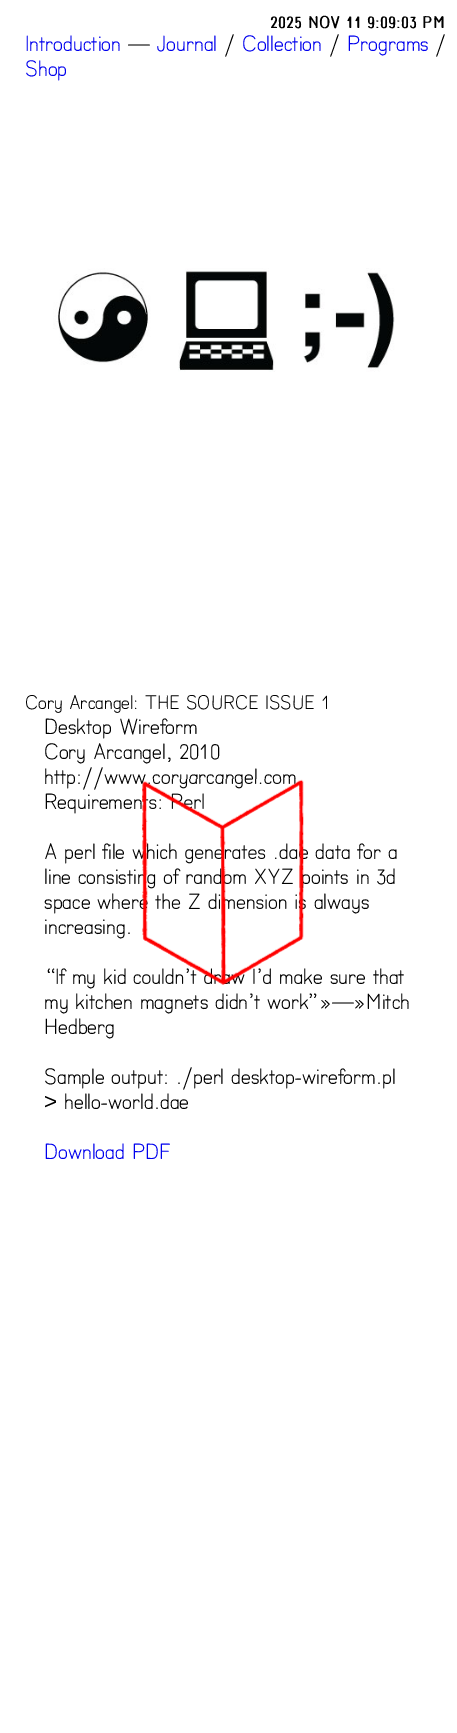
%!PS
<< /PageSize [457 1733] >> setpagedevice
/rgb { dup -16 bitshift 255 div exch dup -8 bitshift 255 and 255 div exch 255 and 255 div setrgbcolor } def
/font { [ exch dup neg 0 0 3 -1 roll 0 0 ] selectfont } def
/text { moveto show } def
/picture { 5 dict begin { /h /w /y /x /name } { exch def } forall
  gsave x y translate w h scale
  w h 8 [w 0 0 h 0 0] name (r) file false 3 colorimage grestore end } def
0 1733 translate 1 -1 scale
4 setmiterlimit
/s1 { /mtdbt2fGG-Regular 17.5 font 16#000000 rgb } def
/s2 { /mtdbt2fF-Regular 22.5 font 16#0000EE rgb } def
/s3 { /mtdbt2fF-Regular 22.5 font 16#000000 rgb } def
/s4 { /mtdbt2fF-Regular 20 font 16#000000 rgb } def
/s5 { /LiberationSans-Regular 22.5 font 16#000000 rgb } def
16#FFFFFF rgb
0 0 457 1733 rectfill
s1
(2025 NOV 11 9:09:03 PM) 270 28 text
s2
(Introduction) 25 51 text
s3
(—) 128 51 text
s2
(Journal) 156 51 text
s3
(/) 224 51 text
s2
(Collection) 242 51 text
s3
(/) 329 51 text
s2
(Programs) 347 51 text
s3
(/) 435 51 text
s2
(Shop) 25 76 text
(pic1.raw) 53 268 342 104 picture
s4
(Cory Arcangel: THE SOURCE ISSUE 1) 25 709 text
s3
(Desktop Wireform) 44 734 text
(Cory Arcangel, 2010) 44 759 text
(http://www.coryarcangel.com) 44 784 text
(Requirements:) 44 809 text
(rl) 193 809 text
(A perl file which generates .dae data for a) 44 859 text
(line consisting of random XYZ points in 3d) 44 884 text
(space where the Z dimension is always) 44 909 text
(increasing.) 44 934 text
(“If my kid couldn’t draw I’d make sure that) 44 984 text
(my kitchen magnets didn’t work” — Mitch) 44 1009 text
(Hedberg) 44 1034 text
(Sample output: ./perl desktop-wireform.pl) 44 1084 text
s5
(>) 44 1109 text
s3
(hello-world.dae) 64 1109 text
s2
(Download PDF) 44 1159 text
(pic2.raw) 142 779 162 206 picture
showpage
